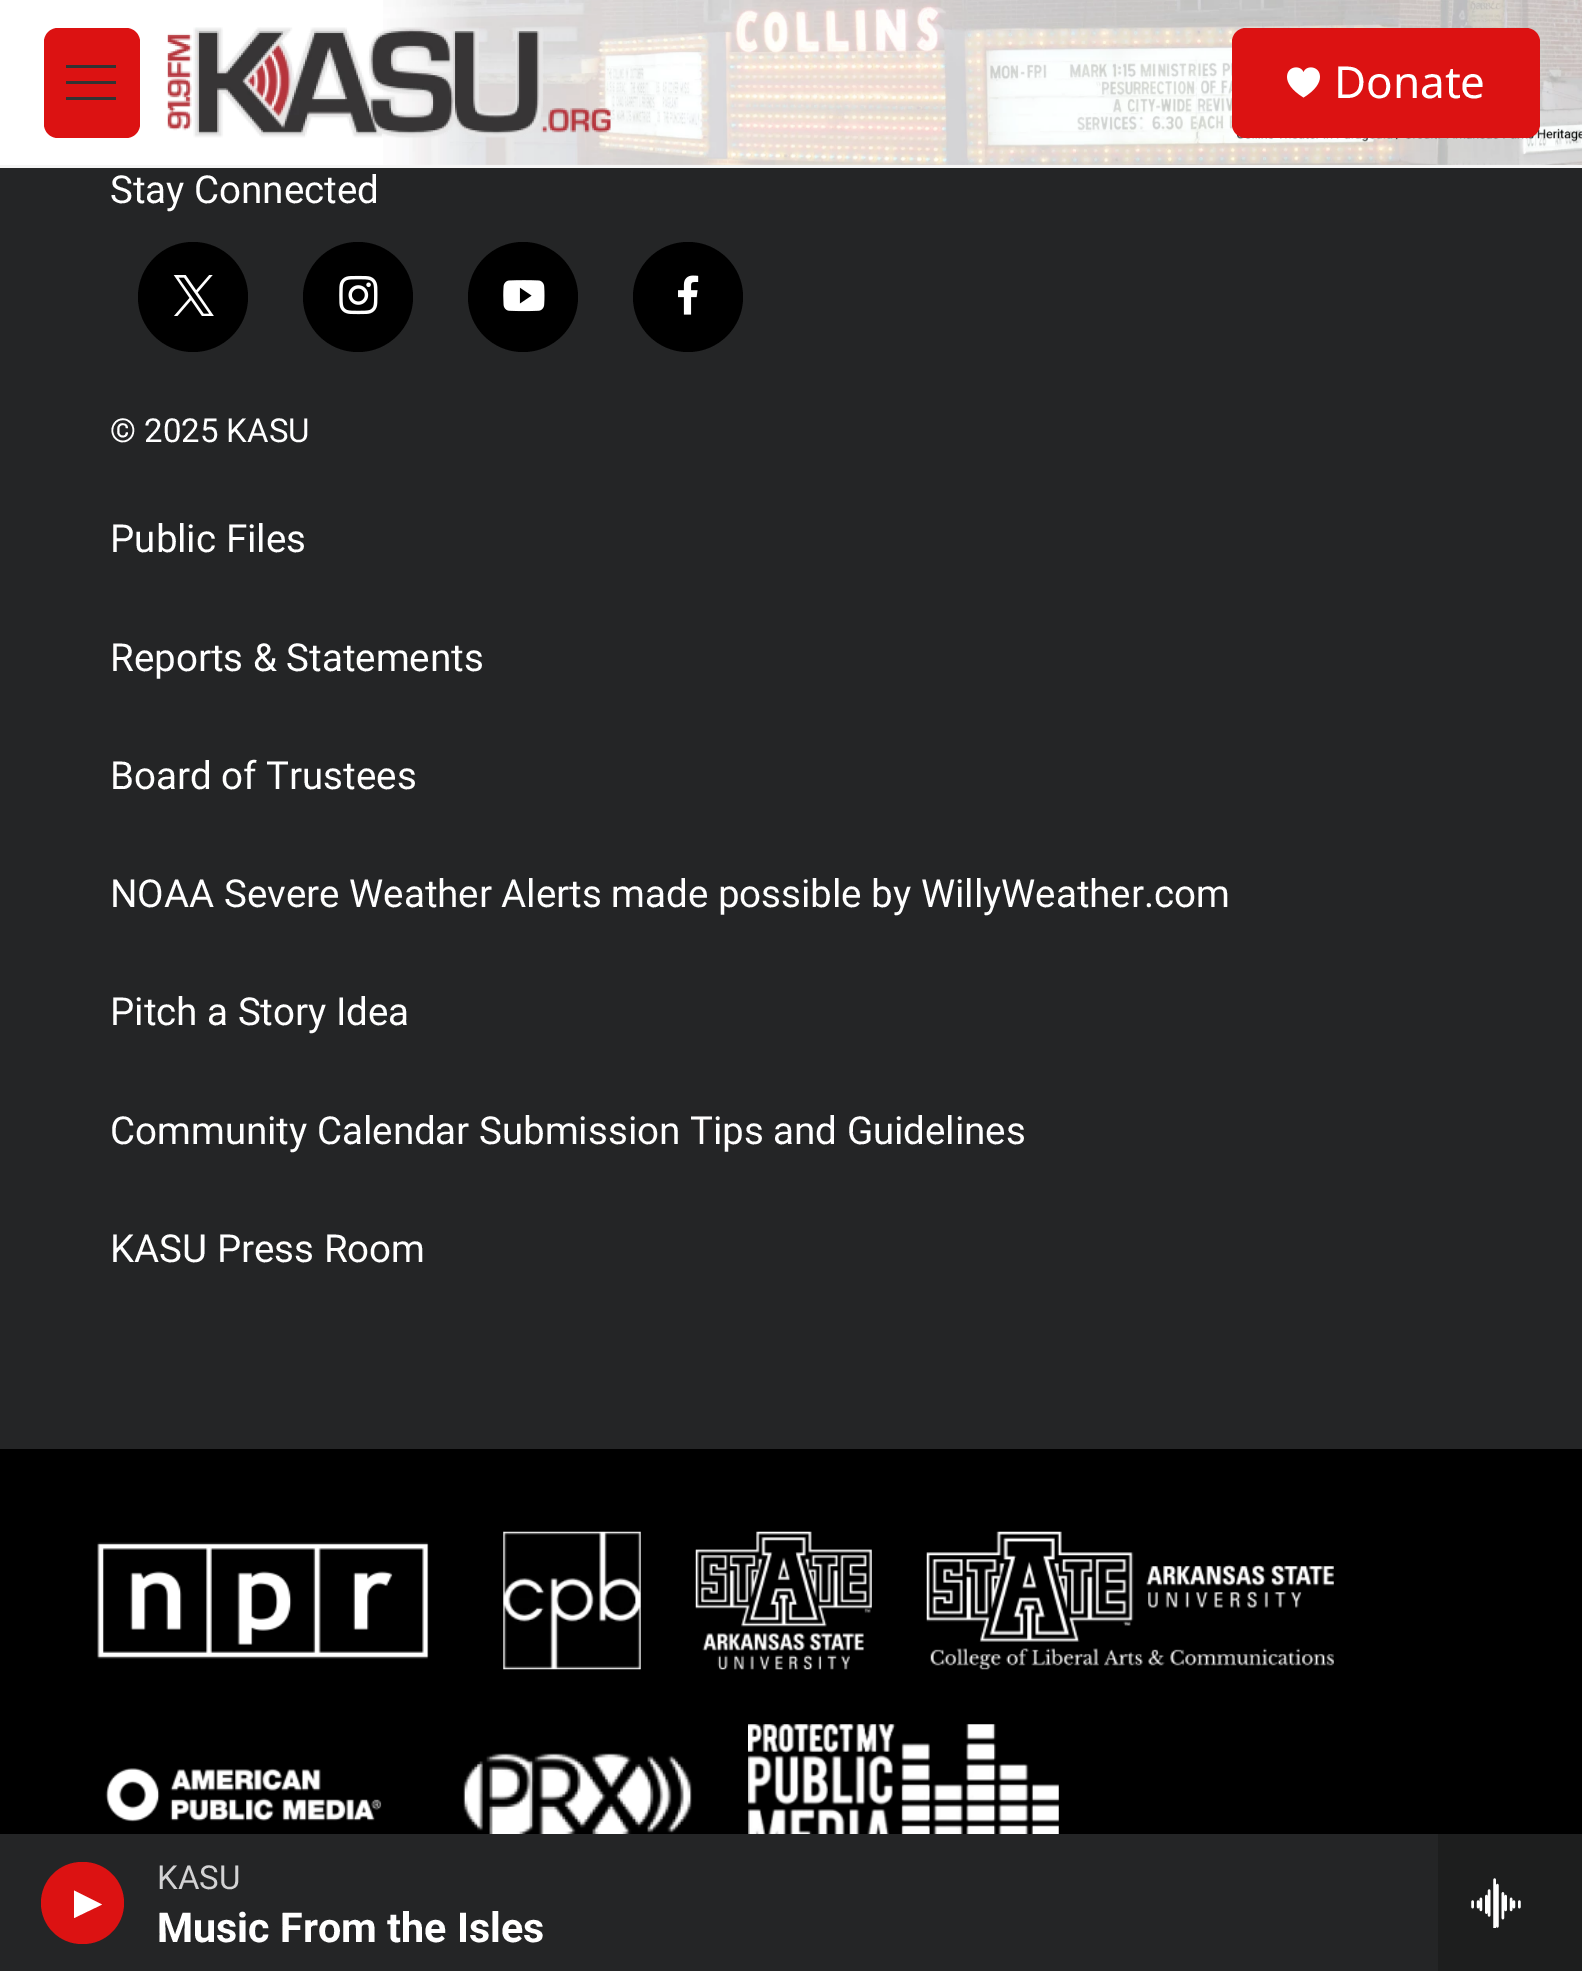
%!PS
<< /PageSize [1582 1971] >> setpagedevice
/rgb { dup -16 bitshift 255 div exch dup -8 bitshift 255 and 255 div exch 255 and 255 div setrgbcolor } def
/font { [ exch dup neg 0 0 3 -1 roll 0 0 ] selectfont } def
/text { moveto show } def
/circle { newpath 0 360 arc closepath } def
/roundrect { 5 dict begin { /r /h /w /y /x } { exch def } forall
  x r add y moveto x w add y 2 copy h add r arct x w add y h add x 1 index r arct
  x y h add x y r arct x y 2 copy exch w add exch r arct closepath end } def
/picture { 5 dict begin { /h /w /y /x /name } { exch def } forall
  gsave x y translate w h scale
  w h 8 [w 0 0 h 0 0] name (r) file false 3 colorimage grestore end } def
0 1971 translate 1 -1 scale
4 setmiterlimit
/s1 { /NotoSans-Regular 44 font 16#FFFFFF rgb } def
/s2 { /Roboto-Regular 33 font 16#D3D3D4 rgb } def
/s3 { /Roboto-Bold 41.25 font 16#FFFFFF rgb } def
/s4 { /Roboto-Regular 38.5 font 16#FFFFFF rgb } def
/s5 { /Roboto-Regular 33 font 16#FFFFFF rgb } def
16#242526 rgb
0 0 1582 1971 rectfill
16#FFFFFF rgb
0 0 1582 165 rectfill
16#F5F5F5 rgb
0 165 1582 3 rectfill
(pic1.raw) 383 0 1199 165 picture
16#DC1212 rgb
44 28 96 110 14 roundrect fill
16#333333 rgb
66 84 moveto 66 81 lineto 116 81 lineto 116 84 lineto closepath 66 68 moveto 66 65 lineto 116 65 lineto 116 68 lineto closepath 66 100 moveto 66 97 lineto 116 97 lineto 116 100 lineto closepath eofill
(pic2.raw) 167 27 444 111 picture
16#DC1212 rgb
1232 28 308 110 14 roundrect fill
(pic3.raw) 1287 67 33 31 picture
s1
(Donate) 1334 98 text
16#DC1212 rgb
41 1862 83 82 41 roundrect fill
16#FFFFFF rgb
74 1890.5 moveto 102 1904.5 lineto 74 1918 lineto closepath fill
s2
(KASU) 157 1889 text
s3
(Music From the Isles) 157 1942 text
16#1D1E1E rgb
1438 1834 144 137 rectfill
(pic4.raw) 1471 1878 50 50 picture
s4
(Stay Connected) 110 203 text
16#000000 rgb
193 297 55 circle fill
(pic5.raw) 173 275 41 41 picture
358 297 55 circle fill
(pic6.raw) 339 275 39 40 picture
523 297 55 circle fill
(pic7.raw) 503 280 42 32 picture
688 297 55 circle fill
(pic8.raw) 678 275 21 40 picture
s5
(© 2025 KASU) 110 442 text
s4
(Public Files) 110 552 text
(Reports & Statements) 110 671 text
(Board of Trustees) 110 789 text
(NOAA Severe Weather Alerts made possible by WillyWeather.com) 110 907 text
(Pitch a Story Idea) 110 1025 text
(Community Calendar Submission Tips and Guidelines) 110 1144 text
(KASU Press Room) 110 1262 text
16#000000 rgb
0 1449 1582 385 rectfill
(pic9.raw) 97 1542 332 117 picture
(pic10.raw) 503 1531 138 139 picture
(pic11.raw) 695 1531 177 139 picture
(pic12.raw) 926 1531 408 139 picture
(pic13.raw) 105 1768 277 54 picture
(pic14.raw) 463 1753 229 81 picture
(pic15.raw) 748 1724 311 110 picture
showpage
